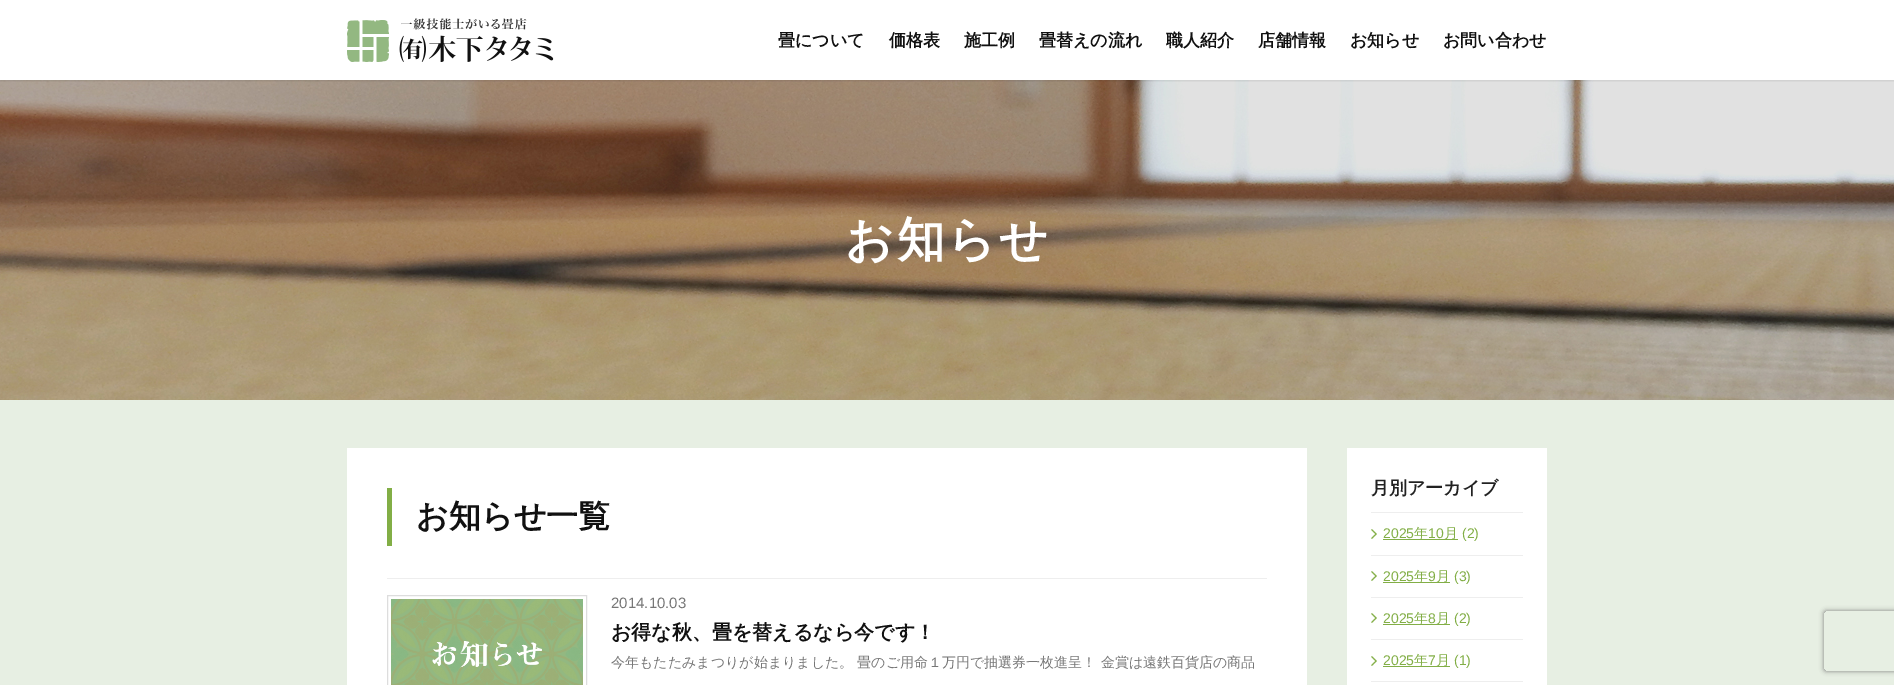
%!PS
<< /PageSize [1894 685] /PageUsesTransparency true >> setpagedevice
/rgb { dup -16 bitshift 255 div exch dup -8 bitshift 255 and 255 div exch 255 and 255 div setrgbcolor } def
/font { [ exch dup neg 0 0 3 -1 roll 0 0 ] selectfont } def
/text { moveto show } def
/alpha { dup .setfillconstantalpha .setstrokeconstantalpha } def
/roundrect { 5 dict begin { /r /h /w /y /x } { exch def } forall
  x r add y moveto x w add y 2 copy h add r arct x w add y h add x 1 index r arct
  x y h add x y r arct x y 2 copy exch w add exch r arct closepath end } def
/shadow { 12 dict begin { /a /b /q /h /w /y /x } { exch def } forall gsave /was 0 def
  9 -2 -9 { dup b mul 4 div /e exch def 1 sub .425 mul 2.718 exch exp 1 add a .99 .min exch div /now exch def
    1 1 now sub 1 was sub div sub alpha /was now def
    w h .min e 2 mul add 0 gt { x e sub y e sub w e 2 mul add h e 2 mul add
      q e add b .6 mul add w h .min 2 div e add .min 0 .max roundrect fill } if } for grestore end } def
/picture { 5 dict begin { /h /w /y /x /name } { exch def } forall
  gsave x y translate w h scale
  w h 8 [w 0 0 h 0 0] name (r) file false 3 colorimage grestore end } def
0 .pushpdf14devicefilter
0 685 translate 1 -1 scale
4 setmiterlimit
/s1 { /WenQuanYiZenHei-Bold 17 font 16#111111 rgb } def
/s2 { /WenQuanYiZenHei-Bold 32 font 16#111111 rgb } def
/s3 { /LiberationSans-Regular 15 font 16#777777 rgb } def
/s4 { /WenQuanYiZenHei-Bold 20 font 16#111111 rgb } def
/s5 { /WenQuanYiZenHei-Medium 14 font 16#777777 rgb } def
/s6 { /WenQuanYiZenHei-Bold 18 font 16#222222 rgb } def
/s7 { /LiberationSans-Regular 14 font 16#82AE46 rgb } def
/s8 { /WenQuanYiZenHei-Medium 14 font 16#82AE46 rgb } def
16#FFFFFF rgb
0 0 1894 685 rectfill
(pic2.raw) 0 80 1894 320 picture
gsave
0 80 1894 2 rectclip
16#000000 rgb
0 1 1894 80 0 1 0.1 shadow
grestore
(pic1.raw) 347 18 207 44 picture
s1
(畳について) 778 46 text
(価格表) 889 46 text
(施工例) 964 46 text
(畳替えの流れ) 1039 46 text
(職人紹介) 1166 46 text
(店舗情報) 1258 46 text
(お知らせ) 1350 46 text
(お問い合わせ) 1443 46 text
16#E7EFE3 rgb
0 400 1894 285 rectfill
/WenQuanYiZenHei-Bold 48 font
16#FFFFFF rgb
845 256 moveto 2.5 0 (お知らせ) ashow
347 448 960 237 rectfill
16#82AE46 rgb
387 488 5 58 rectfill
s2
(お知らせ一覧) 416 527 text
16#EEEEEE rgb
387 578 880 1 rectfill
(pic3.raw) 391 599 192 86 picture
16#DDDDDD rgb
387.5 595.5 199 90 rectstroke
s3
(2014.10.03) 611 608 text
s4
(お得な秋、畳を替えるなら今です！) 611 639 text
s5
(今年もたたみまつりが始まりました。 畳のご用命１万円で抽選券一枚進呈！ 金賞は遠鉄百貨店の商品) 611 667 text
16#FFFFFF rgb
1347 448 200 237 rectfill
s6
(月別アーカイブ) 1371 494 text
16#EEEEEE rgb
1371 512 152 1 rectfill
(pic4.raw) 1371 529 6 10 picture
1371 555 152 1 rectfill
s7
(2025) 1383 538 text
1383 539 75 1 rectfill
s8
(年) 1414 538 text
s7
(10) 1428 538 text
s8
(月) 1444 538 text
s7
(\(2\)) 1462 538 text
(pic4.raw) 1371 571 6 10 picture
16#EEEEEE rgb
1371 597 152 1 rectfill
s7
(2025) 1383 581 text
1383 582 67 1 rectfill
s8
(年) 1414 581 text
s7
(9) 1428 581 text
s8
(月) 1436 581 text
s7
(\(3\)) 1454 581 text
(pic4.raw) 1371 613 6 10 picture
16#EEEEEE rgb
1371 639 152 1 rectfill
s7
(2025) 1383 623 text
1383 624 67 1 rectfill
s8
(年) 1414 623 text
s7
(8) 1428 623 text
s8
(月) 1436 623 text
s7
(\(2\)) 1454 623 text
(pic4.raw) 1371 656 6 10 picture
16#EEEEEE rgb
1371 681 152 1 rectfill
s7
(2025) 1383 665 text
1383 666 67 1 rectfill
s8
(年) 1414 665 text
s7
(7) 1428 665 text
s8
(月) 1436 665 text
s7
(\(1\)) 1454 665 text
gsave
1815 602 moveto 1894 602 lineto 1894 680 lineto 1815 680 lineto closepath 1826 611 moveto 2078 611 lineto 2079 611 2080 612 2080 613 curveto 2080 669 lineto 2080 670 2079 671 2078 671 curveto 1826 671 lineto 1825 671 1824 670 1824 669 curveto 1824 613 lineto 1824 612 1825 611 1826 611 curveto closepath eoclip newpath
16#808080 rgb
1824 611 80 60 2 2.5 1 shadow
grestore
.poppdf14devicefilter showpage
